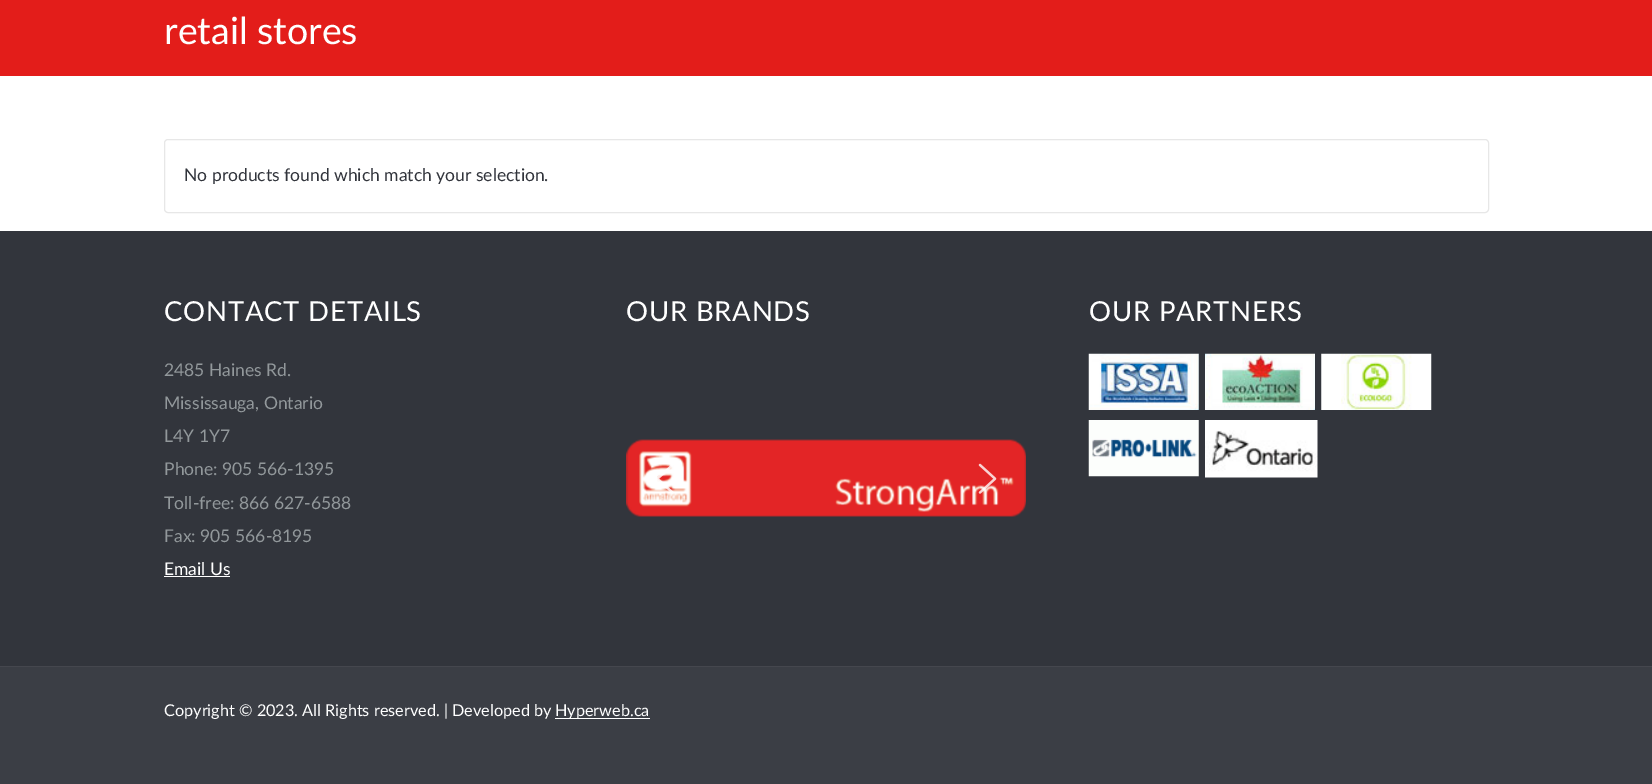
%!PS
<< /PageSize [1652 784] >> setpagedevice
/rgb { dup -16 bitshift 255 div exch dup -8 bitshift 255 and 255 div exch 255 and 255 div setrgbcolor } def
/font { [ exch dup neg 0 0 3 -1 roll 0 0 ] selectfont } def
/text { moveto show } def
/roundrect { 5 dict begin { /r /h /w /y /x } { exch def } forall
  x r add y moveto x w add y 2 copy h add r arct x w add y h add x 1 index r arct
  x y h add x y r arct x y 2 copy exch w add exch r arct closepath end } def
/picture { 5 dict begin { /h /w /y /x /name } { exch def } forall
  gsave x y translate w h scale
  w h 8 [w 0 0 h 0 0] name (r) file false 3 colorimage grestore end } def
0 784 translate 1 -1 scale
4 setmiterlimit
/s1 { /Lato-Regular 37.5 font 16#FFFFFF rgb } def
/s2 { /Lato-Regular 17.5 font 16#31343B rgb } def
/s3 { /Lato-Regular 17.5 font 16#92989B rgb } def
/s4 { /Lato-Regular 17.5 font 16#FFFFFF rgb } def
/s5 { /Lato-Regular 16.25 font 16#FFFFFF rgb } def
16#FFFFFF rgb
0 0 1652 784 rectfill
16#E31D1A rgb
0 0 1652 76 rectfill
s1
(retail stores) 164 44 text
16#E7E7E7 rgb
164.5 139.5 1324 73 3.5 roundrect stroke
s2
(No products found which match your selection.) 184 181 text
16#32353C rgb
0 231 1652 435 rectfill
/Lato-Regular 27.5 font
16#FFFFFF rgb
164 321 moveto 0.8 0 (CONTACT DETAILS) ashow
s3
(2485 Haines Rd.) 164 376 text
(Mississauga, Ontario) 164 409 text
(L4Y 1Y7) 164 442 text
(Phone: 905 566-1395) 164 475 text
(Toll-free: 866 627-6588) 164 509 text
(Fax: 905 566-8195) 164 542 text
s4
(Email Us) 164 575 text
164 576 66 1 rectfill
/Lato-Regular 27.5 font
626 321 moveto 0.8 0 (OUR BRANDS) ashow
(pic1.raw) 626 439 400 78 picture
(pic2.raw) 657 465 17 29 picture
(pic3.raw) 978 463 19 31 picture
1089 321 moveto 0.8 0 (OUR PARTNERS) ashow
(pic4.raw) 1088 353 111 57 picture
(pic5.raw) 1205 353 110 57 picture
(pic6.raw) 1321 353 111 57 picture
(pic7.raw) 1088 420 111 57 picture
(pic8.raw) 1205 420 113 58 picture
16#3B3E45 rgb
0 667 1652 117 rectfill
16#45474E rgb
0 666 1652 1 rectfill
s5
(Copyright © 2023. All Rights reserved. | Developed by) 164 716 text
555 718 95 1 rectfill
(Hyperweb.ca) 555 716 text
showpage
